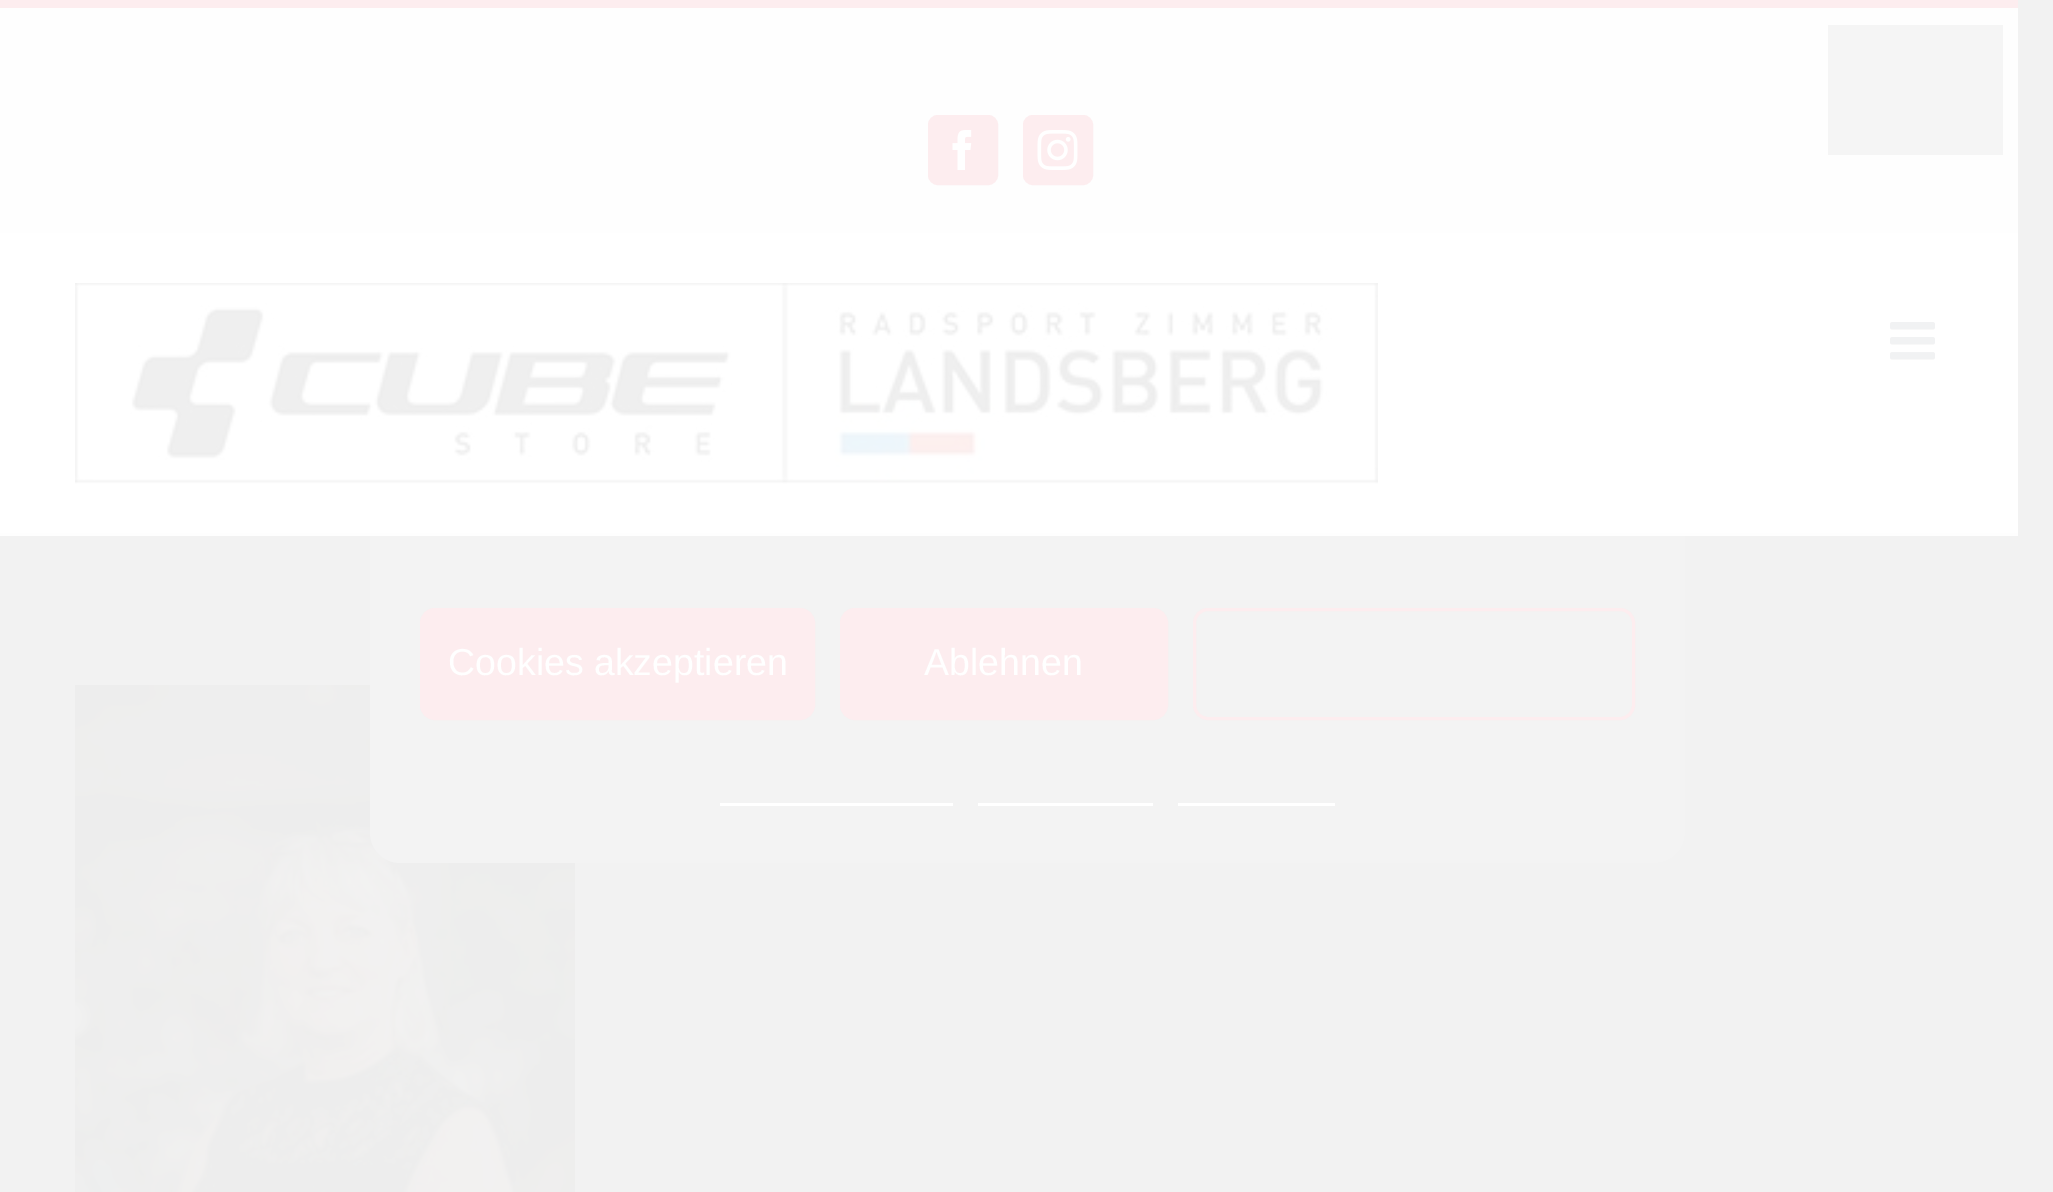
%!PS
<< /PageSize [2053 1192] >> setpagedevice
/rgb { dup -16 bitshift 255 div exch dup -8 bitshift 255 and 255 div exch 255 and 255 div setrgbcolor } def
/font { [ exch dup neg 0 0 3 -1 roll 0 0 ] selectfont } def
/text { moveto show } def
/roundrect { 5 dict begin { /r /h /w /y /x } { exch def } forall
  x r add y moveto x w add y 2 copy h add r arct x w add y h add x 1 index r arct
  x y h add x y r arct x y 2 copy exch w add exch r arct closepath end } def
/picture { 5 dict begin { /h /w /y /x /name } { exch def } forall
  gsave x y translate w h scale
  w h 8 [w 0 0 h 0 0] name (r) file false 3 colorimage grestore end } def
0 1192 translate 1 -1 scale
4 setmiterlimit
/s1 { /LiberationSans-Regular 37.5 font 16#FFFFFF rgb } def
16#F2F2F2 rgb
0 0 2053 1192 rectfill
16#FEFEFE rgb
0 8 2018 225 rectfill
16#FDEDEF rgb
0 0 2018 8 rectfill
929.5 116.5 67 67 8.5 roundrect gsave fill grestore
3 setlinewidth
stroke
(pic1.raw) 952 130 20 40 picture
1024.5 116.5 67 67 8.5 roundrect gsave fill grestore
stroke
(pic2.raw) 1037 130 41 40 picture
(pic5.raw) 75 685 500 507 picture
16#F3F3F3 rgb
370 333 1315 530 30 roundrect fill
16#FFFFFF rgb
0 233 2018 300 rectfill
16#FEFEFE rgb
0 533 2018 3 rectfill
(pic3.raw) 75 283 1303 201 picture
(pic4.raw) 1890 322 45 38 picture
16#F5F5F5 rgb
1828 25 175 130 rectfill
16#FDEDEF rgb
421.5 609.5 392 109 13.5 roundrect gsave fill grestore
stroke
s1
(Cookies akzeptieren) 448 675 text
16#FDEDEF rgb
841.5 609.5 325 109 13.5 roundrect gsave fill grestore
stroke
s1
(Ablehnen) 924 675 text
16#FDEDEF rgb
1194.5 609.5 439 109 13.5 roundrect stroke
16#FFFFFF rgb
720 803 233 3 rectfill
978 803 175 3 rectfill
1178 803 157 3 rectfill
showpage
